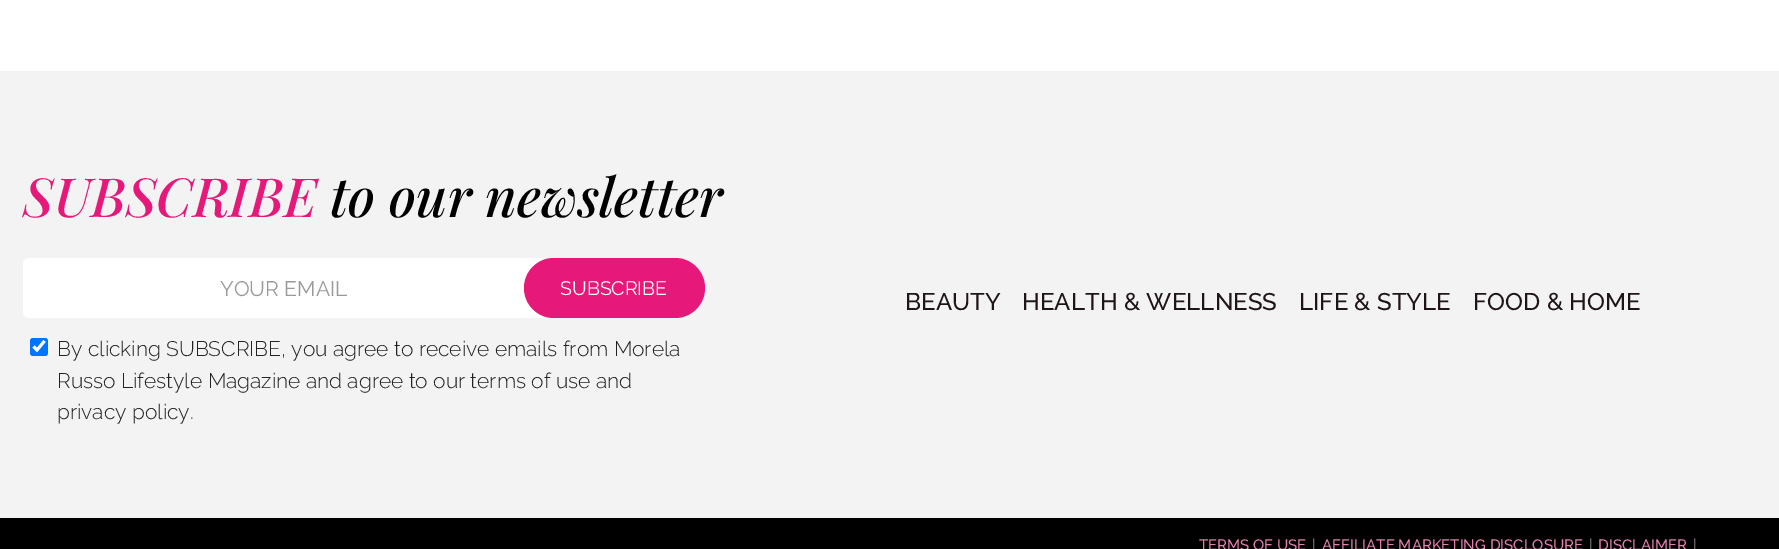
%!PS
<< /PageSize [1779 549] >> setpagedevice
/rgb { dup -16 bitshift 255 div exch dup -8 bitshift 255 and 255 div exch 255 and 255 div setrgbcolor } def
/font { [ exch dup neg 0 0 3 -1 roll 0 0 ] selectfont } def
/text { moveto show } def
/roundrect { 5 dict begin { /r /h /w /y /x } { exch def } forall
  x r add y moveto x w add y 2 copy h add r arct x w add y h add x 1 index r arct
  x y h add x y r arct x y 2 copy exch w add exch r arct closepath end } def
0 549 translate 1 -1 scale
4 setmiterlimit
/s1 { /PlayfairDisplay-MediumItalic 54 font 16#E6197A rgb } def
/s2 { /PlayfairDisplay-MediumItalic 54 font 16#000000 rgb } def
/s3 { /Raleway-Regular 21 font 16#999999 rgb } def
/s4 { /Raleway-Regular 19.5 font 16#FFFFFF rgb } def
/s5 { /Raleway-Light 21 font 16#222222 rgb } def
/s6 { /Raleway-Medium 15 font 16#E481B0 rgb } def
/s7 { /Raleway-Medium 15 font 16#8C8589 rgb } def
16#FFFFFF rgb
0 0 1779 549 rectfill
16#F2F3F2 rgb
0 71 1779 447 rectfill
s1
(SUBSCRIBE) 23 217 text
s2
(to our newsletter) 330 217 text
16#FFFFFF rgb
23 258 523 60 6 roundrect fill
s3
(YOUR EMAIL) 220 296 text
16#E6197A rgb
524 258 181 60 30 roundrect fill
s4
(SUBSCRIBE) 560 295 text
16#0075FF rgb
30 338 18 18 3 roundrect fill
16#FFFFFF rgb
2.9 setlinewidth
33.5 346.5 moveto 37 350 lineto 44.5 341 lineto stroke
s5
(By clicking SUBSCRIBE, you agree to receive emails from Morela) 57 356 text
(Russo Lifestyle Magazine and agree to our terms of use and) 57 388 text
(privacy policy.) 57 419 text
/Raleway-Medium 24 font
16#1F1419 rgb
905 310 moveto 0.1 0 (BEAUTY) ashow
1022 310 moveto 0.1 0 (HEALTH & WELLNESS) ashow
1299 310 moveto 0.1 0 (LIFE & STYLE) ashow
1473 310 moveto 0.1 0 (FOOD & HOME) ashow
16#000000 rgb
0 518 1779 31 rectfill
s6
(TERMS OF USE) 1199 550 text
s7
(|) 1312 550 text
s6
(AFFILIATE MARKETING DISCLOSURE) 1322 550 text
s7
(|) 1589 550 text
s6
(DISCLAIMER) 1598 550 text
s7
(|) 1693 550 text
showpage
